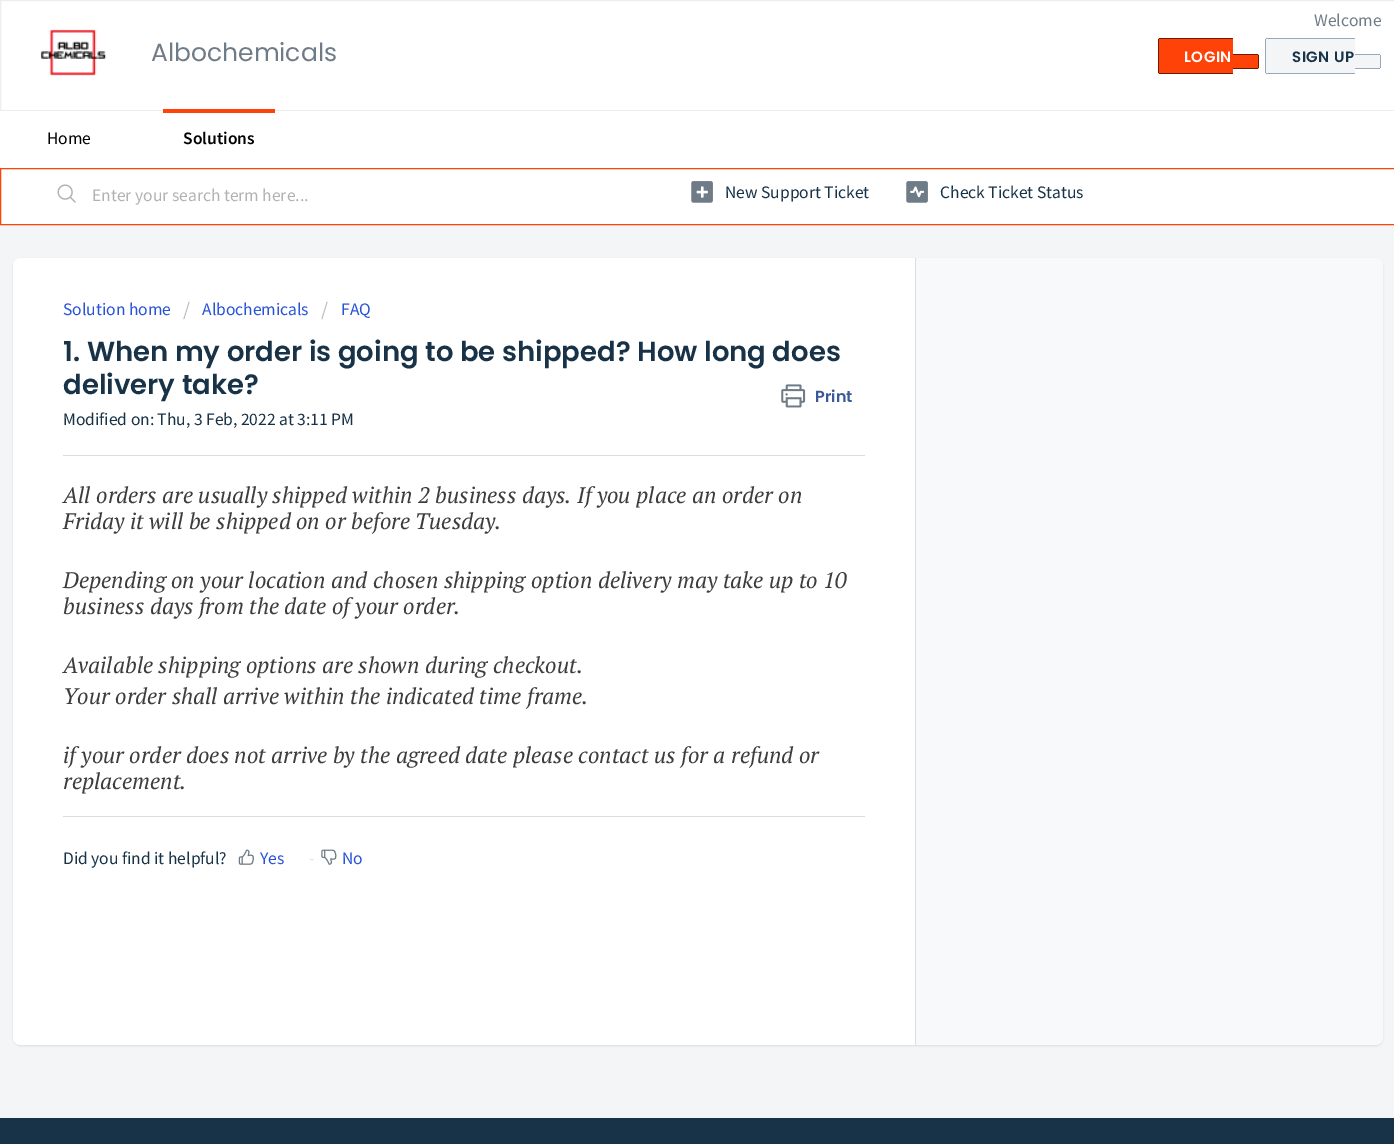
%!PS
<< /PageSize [1394 1144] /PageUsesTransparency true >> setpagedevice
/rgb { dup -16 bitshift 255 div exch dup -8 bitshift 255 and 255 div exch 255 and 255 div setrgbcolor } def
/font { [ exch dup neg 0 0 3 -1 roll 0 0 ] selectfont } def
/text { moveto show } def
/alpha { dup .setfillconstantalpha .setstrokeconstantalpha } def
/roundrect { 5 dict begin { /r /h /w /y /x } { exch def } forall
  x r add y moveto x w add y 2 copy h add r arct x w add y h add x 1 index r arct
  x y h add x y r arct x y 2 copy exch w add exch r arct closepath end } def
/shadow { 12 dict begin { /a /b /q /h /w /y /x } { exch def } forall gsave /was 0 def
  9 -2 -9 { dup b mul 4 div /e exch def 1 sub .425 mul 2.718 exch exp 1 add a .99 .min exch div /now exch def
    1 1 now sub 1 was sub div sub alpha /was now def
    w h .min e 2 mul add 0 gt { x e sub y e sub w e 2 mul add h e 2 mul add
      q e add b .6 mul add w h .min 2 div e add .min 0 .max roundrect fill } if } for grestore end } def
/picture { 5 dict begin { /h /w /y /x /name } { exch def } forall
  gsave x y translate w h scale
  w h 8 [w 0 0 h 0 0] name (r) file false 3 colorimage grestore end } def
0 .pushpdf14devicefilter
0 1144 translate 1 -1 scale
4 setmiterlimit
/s1 { /Poppins-Regular 25 font 16#6F7C87 rgb } def
/s2 { /SourceSansPro-Regular 17.5 font 16#6F7C87 rgb } def
/s3 { /SourceSansPro-Regular 17.5 font 16#000000 rgb } def
/s4 { /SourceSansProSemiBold-SemiBold 17.5 font 16#000000 rgb } def
/s5 { /SourceSansPro-Regular 17.5 font 16#B2B2B2 rgb } def
/s6 { /SourceSansPro-Regular 17.5 font 16#183247 rgb } def
/s7 { /SourceSansPro-Regular 17.5 font 16#2753D7 rgb } def
/s8 { /SourceSansPro-Regular 20 font 16#BBBBBB rgb } def
/s9 { /Poppins-SemiBold 27.5 font 16#183247 rgb } def
/s10 { /Poppins-SemiBold 16 font 16#3B5998 rgb } def
/s11 { /PTSerif-Italic 22.5 font 16#3D3D3D rgb } def
/s12 { /SourceSansPro-Regular 17.5 font 16#E5E5E5 rgb } def
16#F3F5F7 rgb
0 0 1394 1144 rectfill
16#FFFFFF rgb
0.5 0.5 moveto 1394.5 0.5 lineto 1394.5 110.5 lineto 0.5 110.5 lineto closepath gsave fill grestore
16#EBEEF0 rgb
stroke
(pic1.raw) 40 29 67 47 picture
s1
(Albochemicals) 151 61 text
s2
(Welcome) 1314 26 text
16#FF4208 rgb
1160.5 38 moveto 1233 38 lineto 1233 74 lineto 1160.5 74 lineto 1159 74 1158 73 1158 71.5 curveto 1158 40.5 lineto 1158 39 1159 38 1160.5 38 curveto closepath fill
/Poppins-SemiBold 15 font
16#FFFFFF rgb
1184 62 moveto 0.5 0 (LOGIN) ashow
16#6E1A00 rgb
1159 38 74 1 rectfill
1159 73 74 1 rectfill
1158 39 1 34 rectfill
16#FF4208 rgb
1233 54 moveto 1256.5 54 lineto 1258 54 1259 55 1259 56.5 curveto 1259 66.5 lineto 1259 68 1258 69 1256.5 69 curveto 1233 69 lineto closepath fill
16#6E1A00 rgb
1233 54 25 1 rectfill
1258 55 1 13 rectfill
1233 68 25 1 rectfill
16#F3F5F7 rgb
1267.5 38 moveto 1355 38 lineto 1355 74 lineto 1267.5 74 lineto 1266 74 1265 73 1265 71.5 curveto 1265 40.5 lineto 1265 39 1266 38 1267.5 38 curveto closepath fill
16#183247 rgb
1292 62 moveto 0.5 0 (SIGN UP) ashow
16#97A9BA rgb
1266 38 89 1 rectfill
1266 73 89 1 rectfill
1265 39 1 34 rectfill
16#F3F5F7 rgb
1355 54 moveto 1378.5 54 lineto 1380 54 1381 55 1381 56.5 curveto 1381 66.5 lineto 1381 68 1380 69 1378.5 69 curveto 1355 69 lineto closepath fill
16#97A9BA rgb
1355 54 25 1 rectfill
1380 55 1 13 rectfill
1355 68 25 1 rectfill
16#FFFFFF rgb
0 111 1394 57 rectfill
s3
(Home) 47 144 text
16#FF4208 rgb
163 109 112 4 rectfill
s4
(Solutions) 183 144 text
16#FFFFFF rgb
0.5 168.5 moveto 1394.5 168.5 lineto 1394.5 224.5 lineto 0.5 224.5 lineto closepath gsave fill grestore
16#FF4208 rgb
stroke
(pic2.raw) 57 184 19 19 picture
s5
(Enter your search term here...) 92 201 text
(pic3.raw) 691 181 22 22 picture
s6
(New Support Ticket) 725 198 text
(pic4.raw) 906 181 22 22 picture
(Check Ticket Status) 940 198 text
16#3F3F44 rgb
13 259 1370 787 8 1 0.15 shadow
16#F8F9FA rgb
13 258 1370 787 8 roundrect fill
916 258 moveto 1375 258 lineto 1379.5 258 1383 261.5 1383 266 curveto 1383 275 lineto 1383 279.5 1379.5 283 1375 283 curveto 916 283 lineto closepath fill
16#FFFFFF rgb
21 258 moveto 916 258 lineto 916 1045 lineto 21 1045 lineto 16.5 1045 13 1041.5 13 1037 curveto 13 266 lineto 13 261.5 16.5 258 21 258 curveto closepath fill
16#DADFE3 rgb
915 258 1 787 rectfill
s7
(Solution home) 63 315 text
s8
(/) 183 316 text
s7
(Albochemicals) 202 315 text
s8
(/) 321 316 text
s7
(FAQ) 341 315 text
s9
(1. When my order is going to be shipped? How long does) 63 361 text
(delivery take?) 63 394 text
(pic5.raw) 781 384 25 24 picture
s10
(Print) 815 402 text
s6
(Modified on: Thu, 3 Feb, 2022 at 3:11 PM) 63 425 text
16#DCDCDC rgb
63 455 802 1 rectfill
s11
(All orders are usually shipped within 2 business days. If you place an order on) 63 503 text
(Friday it will be shipped on or before Tuesday.) 63 529 text
(Depending on your location and chosen shipping option delivery may take up to 10) 63 588 text
(business days from the date of your order.) 63 614 text
(Available shipping options are shown during checkout.) 63 673 text
(Your order shall arrive within the indicated time frame.) 63 704 text
(if your order does not arrive by the agreed date please contact us for a refund or) 63 763 text
(replacement.) 63 789 text
16#DCDCDC rgb
63 816 802 1 rectfill
s6
(Did you find it helpful?) 63 864 text
(pic6.raw) 238 849 17 16 picture
s7
(Yes) 260 864 text
s12
(-) 309 864 text
(pic7.raw) 321 849 16 16 picture
s7
(No) 342 864 text
16#183247 rgb
0 1118 1394 26 rectfill
.poppdf14devicefilter showpage
